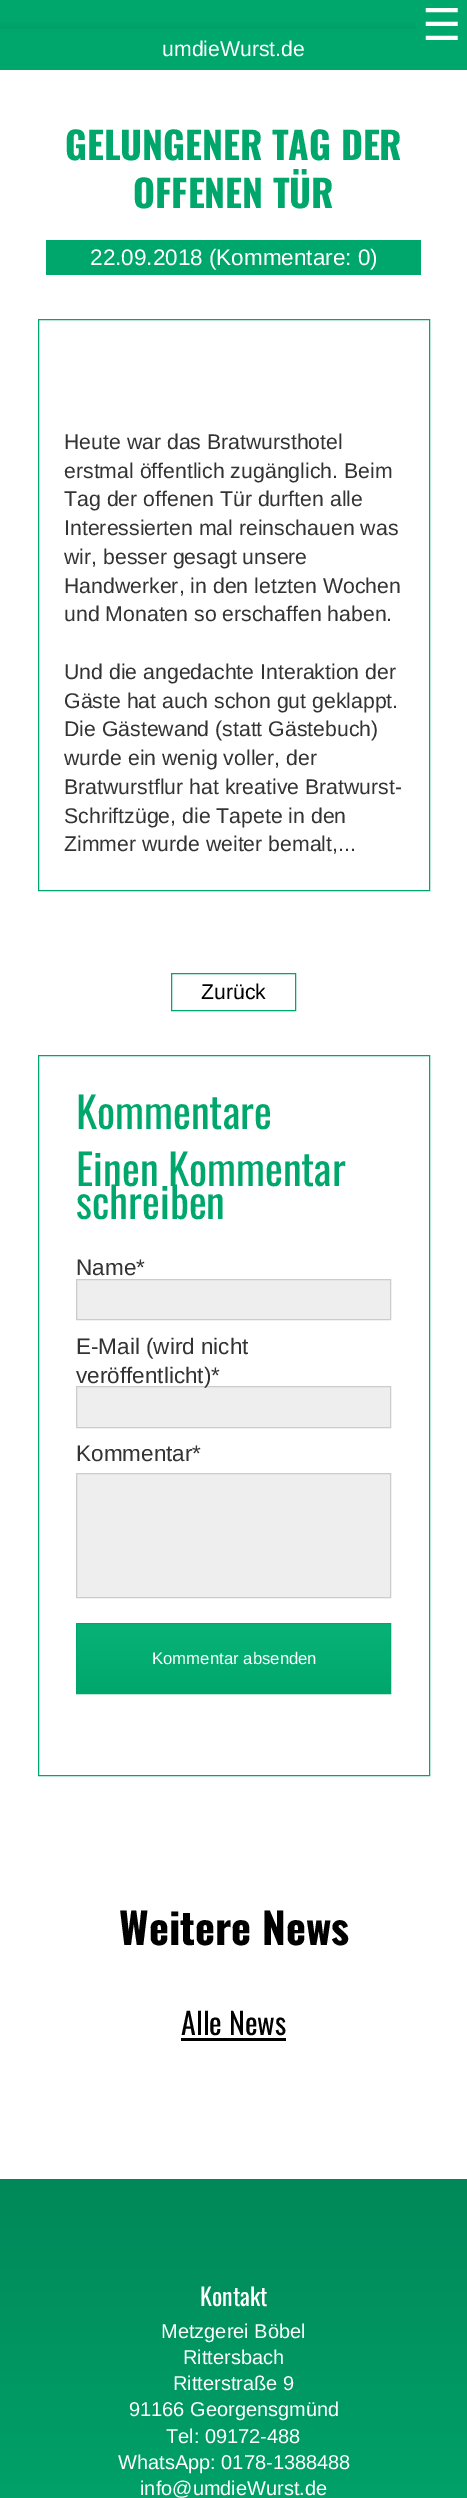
%!PS
<< /PageSize [467 2498] >> setpagedevice
/rgb { dup -16 bitshift 255 div exch dup -8 bitshift 255 and 255 div exch 255 and 255 div setrgbcolor } def
/font { [ exch dup neg 0 0 3 -1 roll 0 0 ] selectfont } def
/text { moveto show } def
0 2498 translate 1 -1 scale
4 setmiterlimit
/s1 { /DejaVuSans-Regular 44 font 16#FFFFFF rgb } def
/s2 { /LiberationSans-Regular 21.25 font 16#FFFFFF rgb } def
/s3 { /Oswald-Bold 37.5 font 16#00A76D rgb } def
/s4 { /LiberationSans-Regular 22.5 font 16#FFFFFF rgb } def
/s5 { /LiberationSans-Regular 21.25 font 16#333333 rgb } def
/s6 { /LiberationSans-Regular 21.25 font 16#000000 rgb } def
/s7 { /Oswald-Regular 42.5 font 16#00A76D rgb } def
/s8 { /LiberationSans-Regular 22.5 font 16#333333 rgb } def
/s9 { /LiberationSans-Regular 16.75 font 16#FFFFFF rgb } def
/s10 { /Oswald-Bold 42.5 font 16#000000 rgb } def
/s11 { /Oswald-Regular 30 font 16#000000 rgb } def
/s12 { /Oswald-Regular 24 font 16#FFFFFF rgb } def
/s13 { /LiberationSans-Regular 20 font 16#FFFFFF rgb } def
16#FFFFFF rgb
0 0 467 2498 rectfill
16#00A76D rgb
416 0 51 29 rectfill
0 29 467 41 rectfill
s1
(☰) 422 40 text
gsave 0 0 moveto 416 0 lineto 416 29 lineto 0 29 lineto closepath clip newpath
<< /ShadingType 2 /ColorSpace /DeviceRGB /Coords [234 70 234 0] /Extend [true true] /Function << /FunctionType 3 /Domain [0 1] /Functions [<< /FunctionType 2 /Domain [0 1] /C0 [0 0.478 0.314] /C1 [0 0.655 0.427] /N 1 >> << /FunctionType 2 /Domain [0 1] /C0 [0 0.655 0.427] /C1 [0 0.655 0.427] /N 1 >>] /Bounds [0.7] /Encode [0 1 0 1] >> >> shfill grestore
s2
(umdieWurst.de) 162 56 text
s3
(GELUNGENER TAG DER) 65 160 text
(OFFENEN TÜR) 133 208 text
46 240 375 35 rectfill
s4
(22.09.2018 \(Kommentare: 0\)) 90 265 text
16#00A76D rgb
38.5 319.5 391 571 rectstroke
s5
(Heute war das Bratwursthotel) 64 449 text
(erstmal öffentlich zugänglich. Beim) 64 478 text
(Tag der offenen Tür durften alle) 64 506 text
(Interessierten mal reinschauen was) 64 535 text
(wir, besser gesagt unsere) 64 564 text
(Handwerker, in den letzten Wochen) 64 593 text
(und Monaten so erschaffen haben.) 64 621 text
(Und die angedachte Interaktion der) 64 679 text
(Gäste hat auch schon gut geklappt.) 64 708 text
(Die Gästewand \(statt Gästebuch\)) 64 736 text
(wurde ein wenig voller, der) 64 765 text
(Bratwurstflur hat kreative Bratwurst-) 64 794 text
(Schriftzüge, die Tapete in den) 64 823 text
(Zimmer wurde weiter bemalt,...) 64 851 text
16#00A76D rgb
171.5 973.5 124 37 rectstroke
s6
(Zurück) 201 999 text
16#00A76D rgb
38.5 1055.5 391 720 rectstroke
s7
(Kommentare) 76 1129 text
(Einen Kommentar) 76 1186 text
(schreiben) 76 1219 text
s8
(Name*) 76 1275 text
16#EEEEEE rgb
76.5 1279.5 moveto 390.5 1279.5 lineto 390.5 1319.5 lineto 76.5 1319.5 lineto closepath gsave fill grestore
16#CCCCCC rgb
stroke
s8
(E-Mail \(wird nicht) 76 1354 text
16#EEEEEE rgb
76.5 1386.5 moveto 390.5 1386.5 lineto 390.5 1427.5 lineto 76.5 1427.5 lineto closepath gsave fill grestore
16#CCCCCC rgb
stroke
s8
(veröffentlicht\)*) 76 1383 text
(Kommentar*) 76 1461 text
16#EEEEEE rgb
76.5 1473.5 moveto 390.5 1473.5 lineto 390.5 1597.5 lineto 76.5 1597.5 lineto closepath gsave fill grestore
16#CCCCCC rgb
stroke
gsave 77 1624 moveto 390 1624 lineto 390 1693 lineto 77 1693 lineto closepath clip newpath
<< /ShadingType 2 /ColorSpace /DeviceRGB /Coords [234 1693 234 1624] /Extend [true true] /Function << /FunctionType 2 /Domain [0 1] /C0 [0 0.655 0.427] /C1 [0.031 0.702 0.471] /N 1 >> >> shfill grestore
16#00A76D rgb
76.5 1623.5 314 70 rectstroke
s9
(Kommentar absenden) 152 1664 text
s10
(Weitere News) 119 1945 text
s11
(Alle News) 181 2035 text
181 2038 105 3 rectfill
gsave 0 2179 moveto 467 2179 lineto 467 2498 lineto 0 2498 lineto closepath clip newpath
<< /ShadingType 2 /ColorSpace /DeviceRGB /Coords [234 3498 234 2179] /Extend [true true] /Function << /FunctionType 3 /Domain [0 1] /Functions [<< /FunctionType 2 /Domain [0 1] /C0 [0.004 0.561 0.369] /C1 [0 0.655 0.427] /N 1 >> << /FunctionType 2 /Domain [0 1] /C0 [0 0.655 0.427] /C1 [0 0.655 0.427] /N 1 >> << /FunctionType 2 /Domain [0 1] /C0 [0 0.655 0.427] /C1 [0.004 0.533 0.349] /N 1 >>] /Bounds [0.3 0.7] /Encode [0 1 0 1 0 1] >> >> shfill grestore
s12
(Kontakt) 200 2306 text
s13
(Metzgerei Böbel) 161 2338 text
(Rittersbach) 183 2364 text
(Ritterstraße 9) 173 2390 text
(91166 Georgensgmünd) 129 2416 text
(Tel: 09172-488) 166 2443 text
(WhatsApp: 0178-1388488) 118 2469 text
(info@umdieWurst.de) 140 2495 text
showpage
